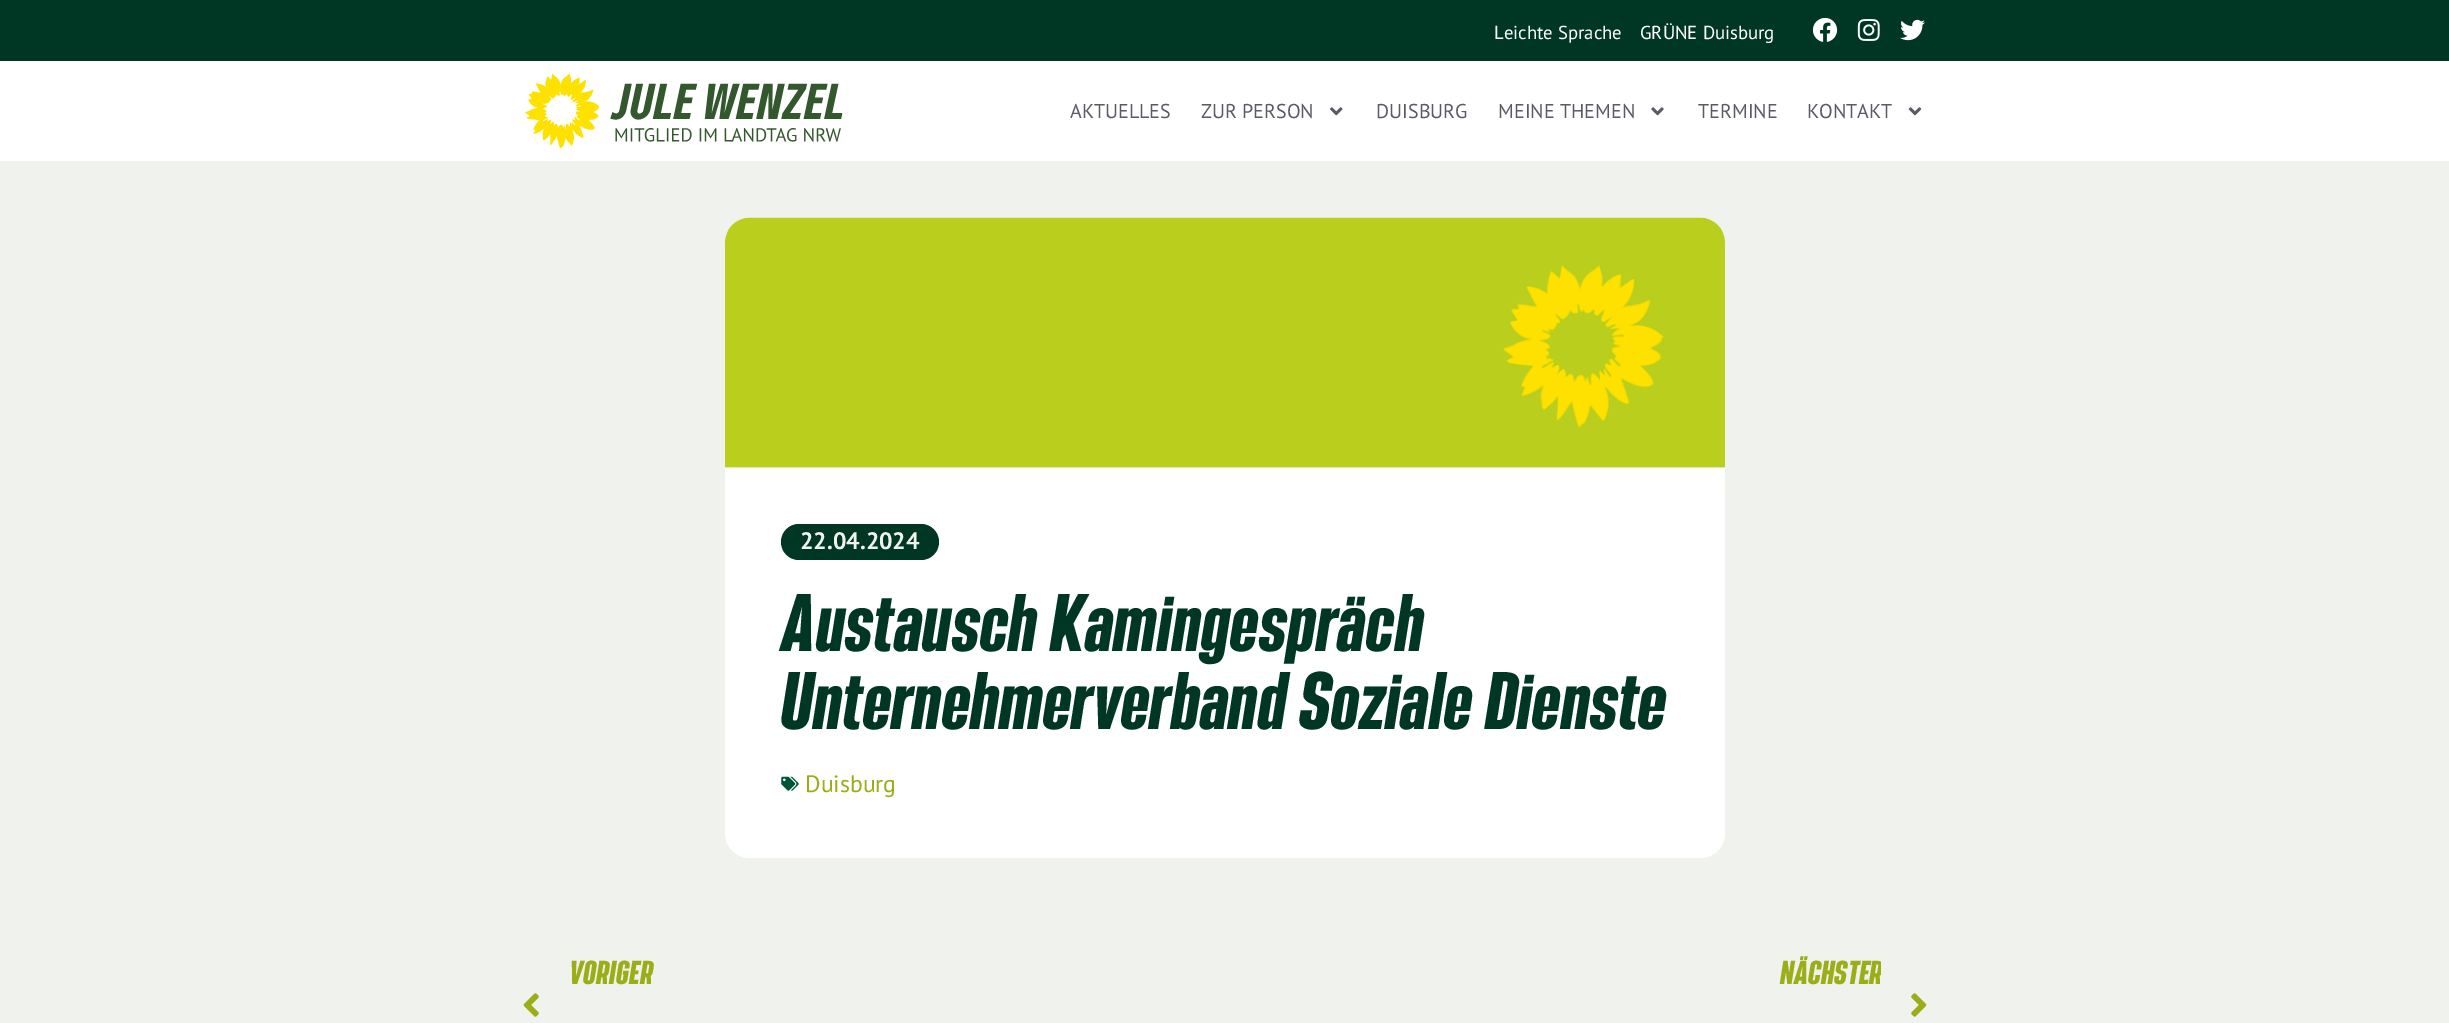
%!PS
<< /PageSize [2449 1023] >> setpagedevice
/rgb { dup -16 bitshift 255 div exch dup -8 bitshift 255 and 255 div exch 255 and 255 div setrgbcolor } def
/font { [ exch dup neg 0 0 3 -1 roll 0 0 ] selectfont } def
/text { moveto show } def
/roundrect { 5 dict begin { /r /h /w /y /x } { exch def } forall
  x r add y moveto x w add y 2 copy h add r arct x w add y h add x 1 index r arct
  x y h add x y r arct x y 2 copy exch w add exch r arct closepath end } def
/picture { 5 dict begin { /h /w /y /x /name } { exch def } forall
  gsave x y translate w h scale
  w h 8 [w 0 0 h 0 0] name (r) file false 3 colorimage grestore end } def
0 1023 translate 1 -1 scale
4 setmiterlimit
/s1 { /PTSans-Regular 18.75 font 16#FFFFFF rgb } def
/s2 { /PTSans-Regular 20 font 16#5B5B66 rgb } def
/s3 { /PTSans-Bold 23.75 font 16#EFF2ED rgb } def
/s4 { /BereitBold-Bold 71.25 font 16#003724 rgb } def
/s5 { /PTSans-Regular 23.75 font 16#9BAD17 rgb } def
/s6 { /BereitBold-Bold 29 font 16#9BAD17 rgb } def
16#EFF2ED rgb
0 0 2449 1023 rectfill
16#003724 rgb
0 0 2449 61 rectfill
s1
(Leichte Sprache) 1494 39 text
(GRÜNE Duisburg) 1640 39 text
(pic1.raw) 1813 18 25 24 picture
(pic2.raw) 1857 19 23 22 picture
(pic3.raw) 1900 19 25 22 picture
0 61 2449 100 rectfill
(pic4.raw) 525 74 318 75 picture
s2
(AKTUELLES) 1070 118 text
(ZUR PERSON) 1201 118 text
(pic5.raw) 1330 107 13 9 picture
(DUISBURG) 1376 118 text
(MEINE THEMEN) 1498 118 text
(pic6.raw) 1651 107 13 9 picture
(TERMINE) 1698 118 text
(KONTAKT) 1807 118 text
(pic7.raw) 1908 107 14 9 picture
(pic8.raw) 725 217 1000 251 picture
16#FFFFFF rgb
725 468 moveto 1725 468 lineto 1725 833 lineto 1725 847 1714 858 1700 858 curveto 750 858 lineto 736 858 725 847 725 833 curveto closepath fill
16#003724 rgb
781 524 158 36 18 roundrect fill
s3
(22.04.2024) 800 549 text
s4
(Austausch Kamingespräch) 781 651 text
(Unternehmerverband Soziale Dienste) 781 729 text
(pic9.raw) 781 776 18 15 picture
s5
(Duisburg) 805 792 text
s6
(VORIGER) 569 984 text
(pic10.raw) 523 993 16 24 picture
gsave
1775 951 106 44 rectclip
(NÄCHSTER) 1780 984 text
grestore
(pic11.raw) 1911 993 16 24 picture
showpage
